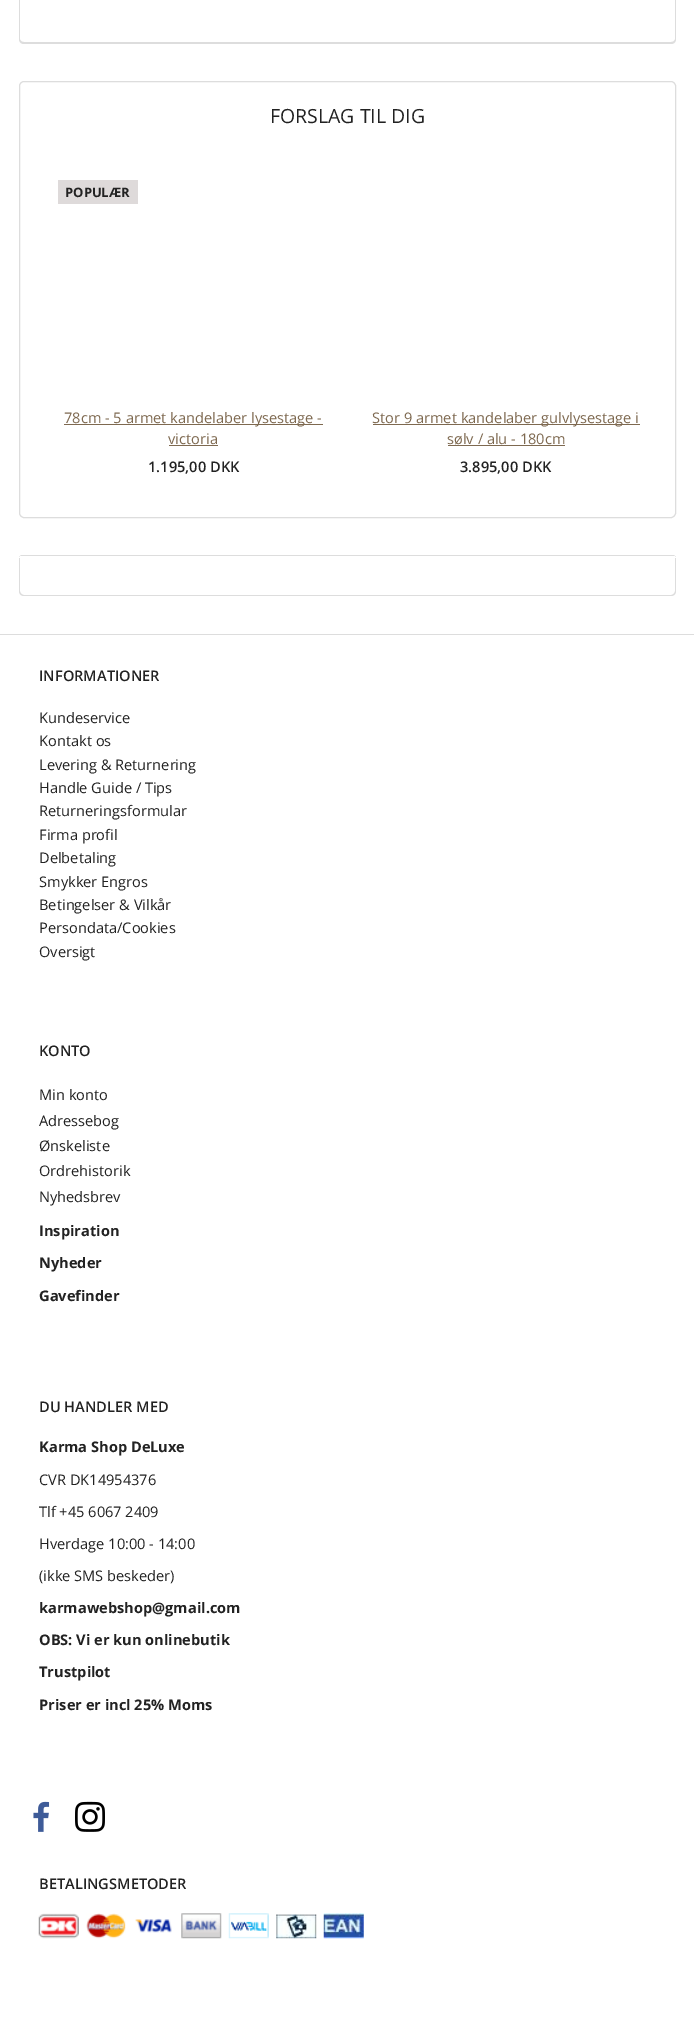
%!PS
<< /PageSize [694 2024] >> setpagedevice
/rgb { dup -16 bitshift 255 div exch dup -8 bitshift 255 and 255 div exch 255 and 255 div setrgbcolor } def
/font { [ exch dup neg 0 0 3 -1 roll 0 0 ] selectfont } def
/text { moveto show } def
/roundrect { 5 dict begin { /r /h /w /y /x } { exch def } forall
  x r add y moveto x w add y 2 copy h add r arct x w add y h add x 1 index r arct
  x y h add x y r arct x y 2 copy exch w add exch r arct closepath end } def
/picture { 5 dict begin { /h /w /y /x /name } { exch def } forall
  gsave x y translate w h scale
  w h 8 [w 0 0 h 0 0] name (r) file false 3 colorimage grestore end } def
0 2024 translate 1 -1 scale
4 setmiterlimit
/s1 { /OpenSans-Regular 19.5 font 16#222222 rgb } def
/s2 { /OpenSans-Bold 13 font 16#222222 rgb } def
/s3 { /OpenSans-Regular 14.6 font 16#7E6950 rgb } def
/s4 { /OpenSans-SemiBold 14.6 font 16#222222 rgb } def
/s5 { /OpenSans-Regular 14.6 font 16#222222 rgb } def
/s6 { /OpenSans-Bold 14.6 font 16#222222 rgb } def
16#FFFFFF rgb
0 0 694 2024 rectfill
16#DDDDDD rgb
19 -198 moveto 676 -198 lineto 676 39 lineto 676 42 674 44 671 44 curveto 24 44 lineto 21 44 19 42 19 39 curveto closepath 20 -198 moveto 675 -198 lineto 675 39 lineto 675 41 673 42 671 42 curveto 24 42 lineto 22 42 20 41 20 39 curveto closepath eofill
19.5 81.5 656 436 4.5 roundrect stroke
s1
(FORSLAG TIL DIG) 270 123 text
16#DEDADA rgb
58 180 80 24 rectfill
s2
(POPULÆR) 65 197 text
16#7E6950 rgb
64 424 259 1 rectfill
s3
(78cm - 5 armet kandelaber lysestage -) 64 423 text
(victoria) 168 444 text
169 445 49 1 rectfill
s4
(1.195,00 DKK) 148 472 text
16#7E6950 rgb
373 424 267 1 rectfill
s3
(Stor 9 armet kandelaber gulvlysestage i) 372 423 text
(sølv / alu - 180cm) 447 444 text
448 445 117 1 rectfill
s4
(3.895,00 DKK) 460 472 text
16#DDDDDD rgb
21 555 moveto 20 556 lineto 675 556 lineto 674 555 lineto closepath fill
675.5 556 moveto 676 557 lineto 675 556 lineto closepath fill
19.5 556 moveto 19 557 lineto 20 556 lineto closepath fill
19 558 moveto 676 558 lineto 676 591 lineto 676 594 674 596 671 596 curveto 24 596 lineto 21 596 19 594 19 591 curveto closepath 20 558 moveto 675 558 lineto 675 591 lineto 675 593 673 595 671 595 curveto 24 595 lineto 22 595 20 593 20 591 curveto closepath eofill
0 634 694 1 rectfill
s4
(INFORMATIONER) 39 681 text
s5
(Kundeservice) 39 723 text
(Kontakt os) 39 746 text
(Levering & Returnering) 39 770 text
(Handle Guide / Tips) 39 793 text
(Returneringsformular) 39 816 text
(Firma profil) 39 840 text
(Delbetaling) 39 863 text
(Smykker Engros) 39 887 text
(Betingelser & Vilkår) 39 910 text
(Persondata/Cookies) 39 933 text
(Oversigt) 39 957 text
s4
(KONTO) 39 1056 text
s5
(Min konto) 39 1100 text
(Adressebog) 39 1126 text
(Ønskeliste) 39 1151 text
(Ordrehistorik) 39 1176 text
(Nyhedsbrev) 39 1202 text
s6
(Inspiration) 39 1236 text
(Nyheder) 39 1268 text
(Gavefinder) 39 1301 text
s4
(DU HANDLER MED) 39 1412 text
s6
(Karma Shop DeLuxe) 39 1452 text
s5
(CVR DK14954376) 39 1485 text
(Tlf +45 6067 2409) 39 1517 text
(Hverdage 10:00 - 14:00) 39 1549 text
(\(ikke SMS beskeder\)) 39 1581 text
s6
(karmawebshop@gmail.com) 39 1613 text
(OBS: Vi er kun onlinebutik) 39 1645 text
(Trustpilot) 39 1677 text
(Priser er incl 25% Moms) 39 1710 text
(pic1.raw) 33 1801 17 31 picture
(pic2.raw) 75 1801 30 31 picture
s4
(BETALINGSMETODER) 39 1889 text
(pic3.raw) 38 1913 41 26 picture
(pic4.raw) 86 1913 40 26 picture
(pic5.raw) 135 1918 37 15 picture
(pic6.raw) 181 1913 41 26 picture
(pic7.raw) 228 1913 41 26 picture
(pic8.raw) 276 1914 41 25 picture
(pic9.raw) 323 1913 41 26 picture
showpage
